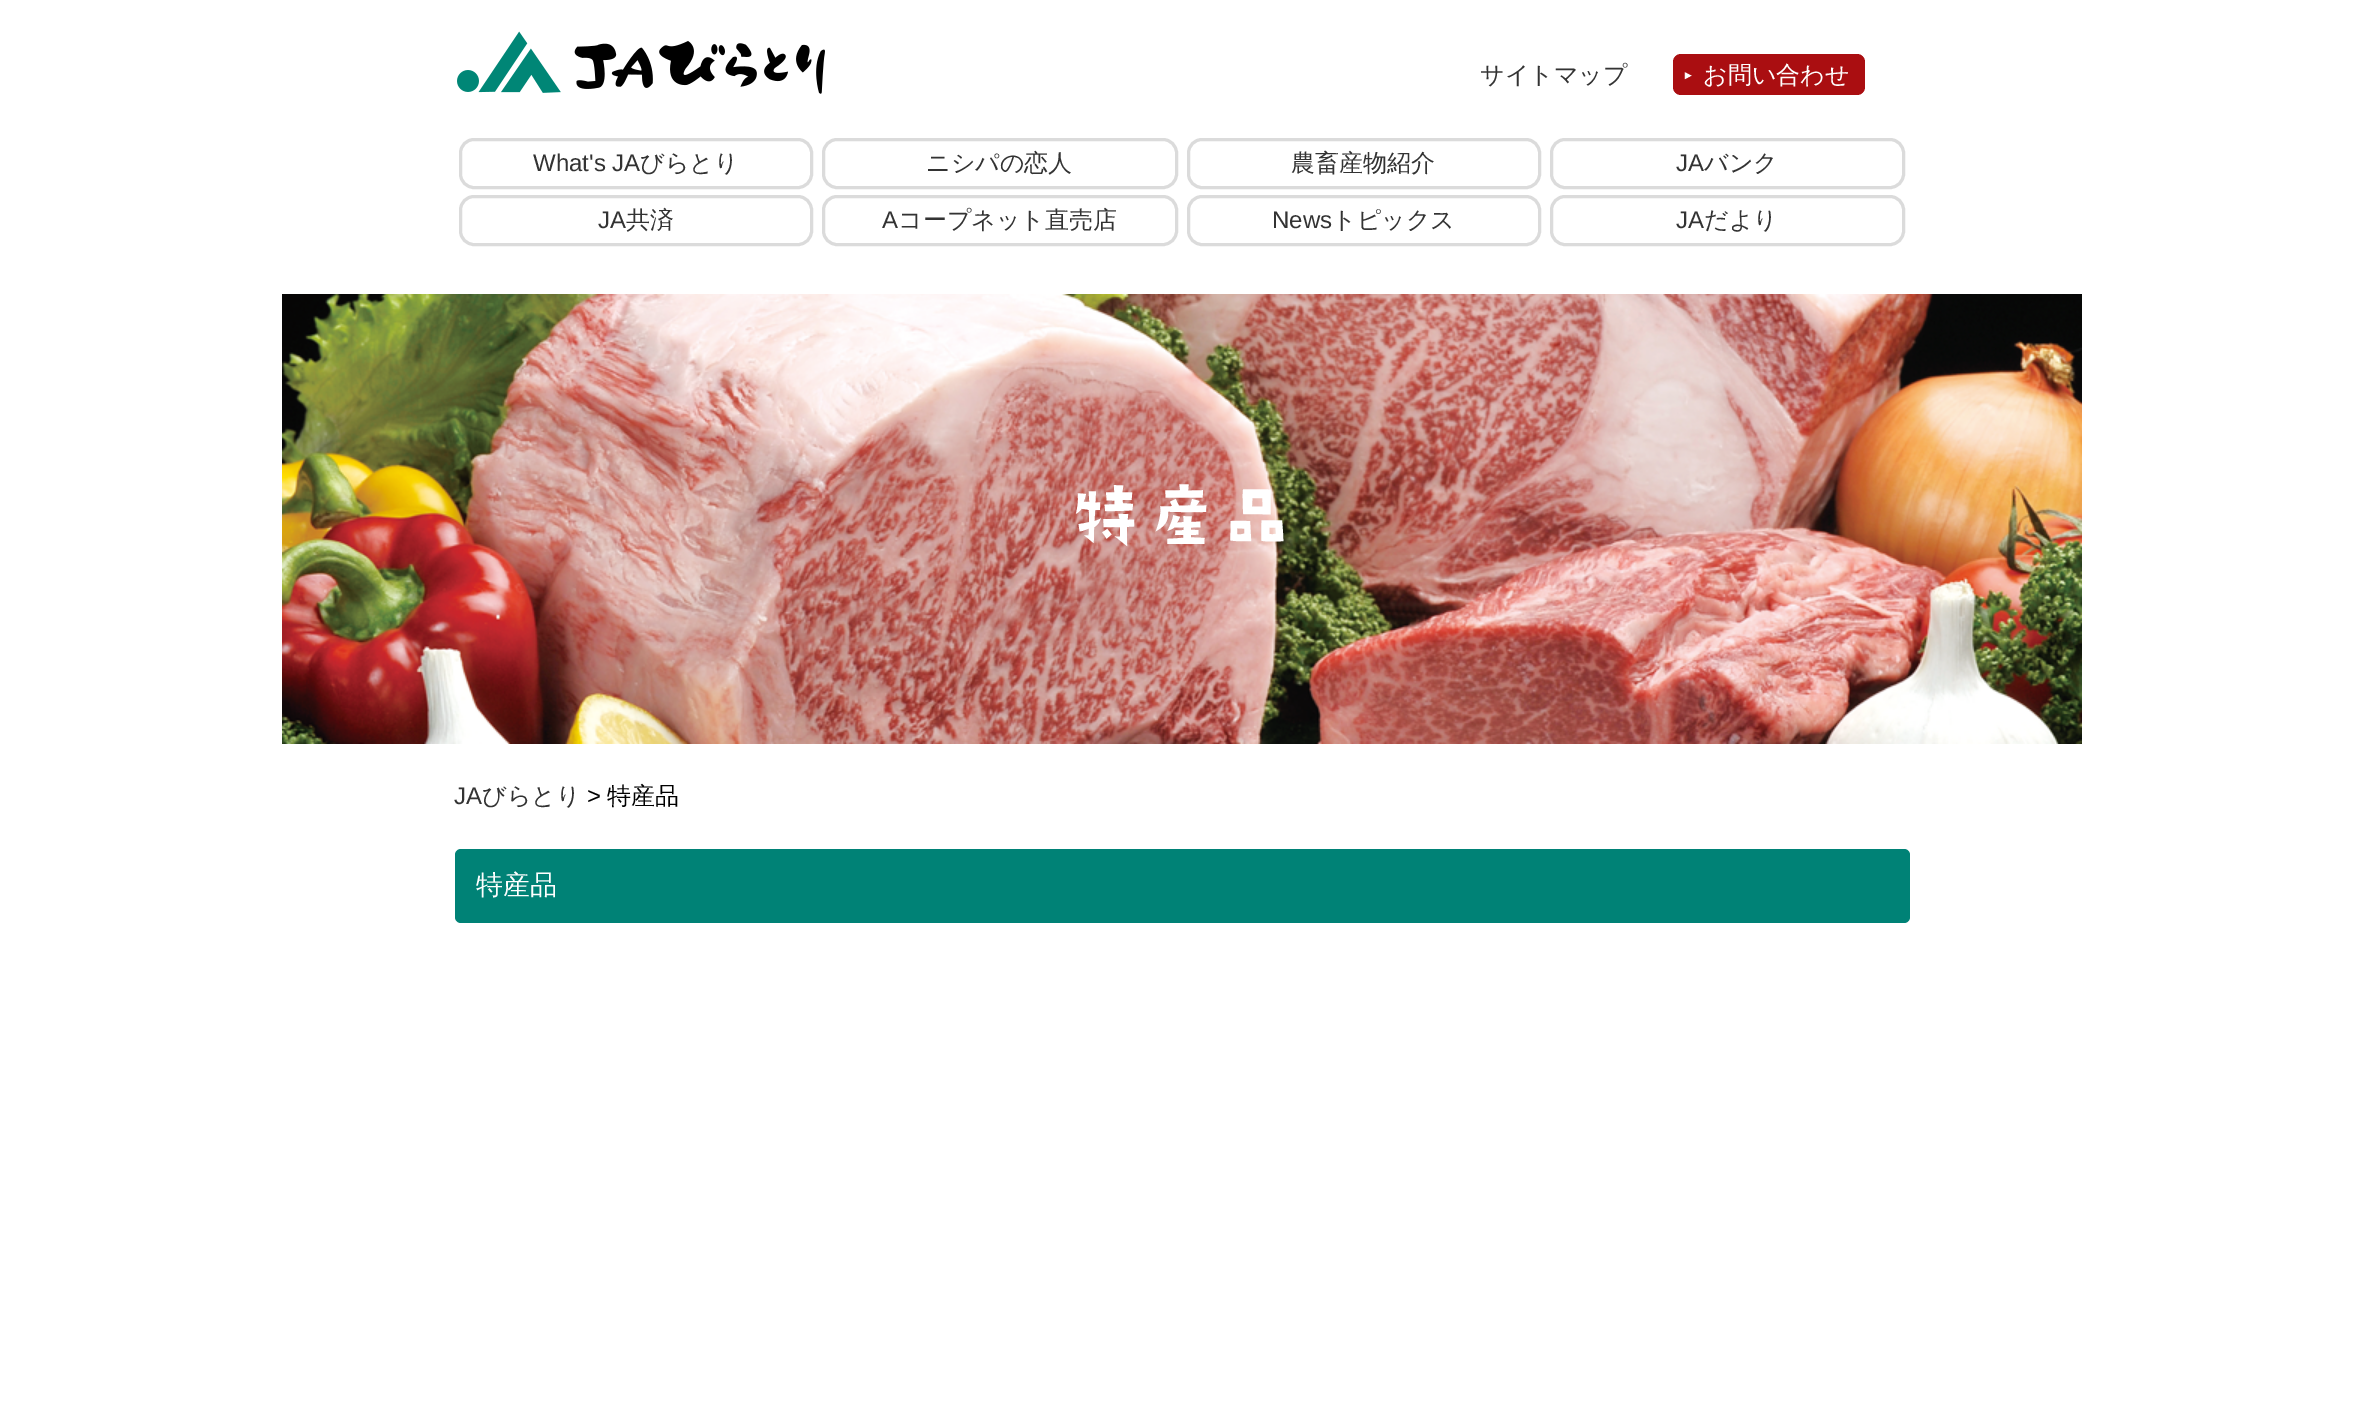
%!PS
<< /PageSize [2362 1424] >> setpagedevice
/rgb { dup -16 bitshift 255 div exch dup -8 bitshift 255 and 255 div exch 255 and 255 div setrgbcolor } def
/font { [ exch dup neg 0 0 3 -1 roll 0 0 ] selectfont } def
/text { moveto show } def
/roundrect { 5 dict begin { /r /h /w /y /x } { exch def } forall
  x r add y moveto x w add y 2 copy h add r arct x w add y h add x 1 index r arct
  x y h add x y r arct x y 2 copy exch w add exch r arct closepath end } def
/picture { 5 dict begin { /h /w /y /x /name } { exch def } forall
  gsave x y translate w h scale
  w h 8 [w 0 0 h 0 0] name (r) file false 3 colorimage grestore end } def
0 1424 translate 1 -1 scale
4 setmiterlimit
/s1 { /WenQuanYiZenHei-Medium 24 font 16#333333 rgb } def
/s2 { /WenQuanYiZenHei-Medium 24 font 16#FFFFFF rgb } def
/s3 { /LiberationSans-Regular 24 font 16#333333 rgb } def
/s4 { /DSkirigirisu-Regular 75 font 16#FFFFFF rgb } def
/s5 { /LiberationSans-Regular 24 font 16#000000 rgb } def
/s6 { /WenQuanYiZenHei-Medium 24 font 16#000000 rgb } def
/s7 { /WenQuanYiZenHei-Medium 27 font 16#FFFFFF rgb } def
16#FFFFFF rgb
0 0 2362 1424 rectfill
(pic1.raw) 457 31 368 63 picture
s1
(サイトマップ) 1480 83 text
16#AA0E11 rgb
1673 54 192 41 8 roundrect fill
(pic2.raw) 1684 72 8 8 picture
s2
(お問い合わせ) 1703 83 text
16#DBDBDB rgb
3 setlinewidth
460.5 139.5 351 48 13.5 roundrect stroke
s3
(What's JA) 533 171 text
s1
(びらとり) 640 171 text
16#DBDBDB rgb
823.5 139.5 353 48 13.5 roundrect stroke
s1
(ニシパの恋人) 926 171 text
16#DBDBDB rgb
1188.5 139.5 351 48 13.5 roundrect stroke
s1
(農畜産物紹介) 1291 171 text
16#DBDBDB rgb
1551.5 139.5 352 48 13.5 roundrect stroke
s3
(JA) 1676 171 text
s1
(バンク) 1704 171 text
16#DBDBDB rgb
460.5 196.5 351 48 13.5 roundrect stroke
s3
(JA) 598 228 text
s1
(共済) 626 228 text
16#DBDBDB rgb
823.5 196.5 353 48 13.5 roundrect stroke
s3
(A) 882 228 text
s1
(コープネット直売店) 898 228 text
16#DBDBDB rgb
1188.5 196.5 351 48 13.5 roundrect stroke
s3
(News) 1272 228 text
s1
(トピックス) 1332 228 text
16#DBDBDB rgb
1551.5 196.5 352 48 13.5 roundrect stroke
s3
(JA) 1676 228 text
s1
(だより) 1704 228 text
(pic3.raw) 282 294 1800 450 picture
s4
(特産品) 1069 543 text
s3
(JA) 454 804 text
s1
(びらとり) 482 804 text
s5
(>) 587 804 text
s6
(特産品) 607 804 text
16#008276 rgb
455 849 1455 74 6 roundrect fill
s7
(特産品) 476 894 text
showpage
